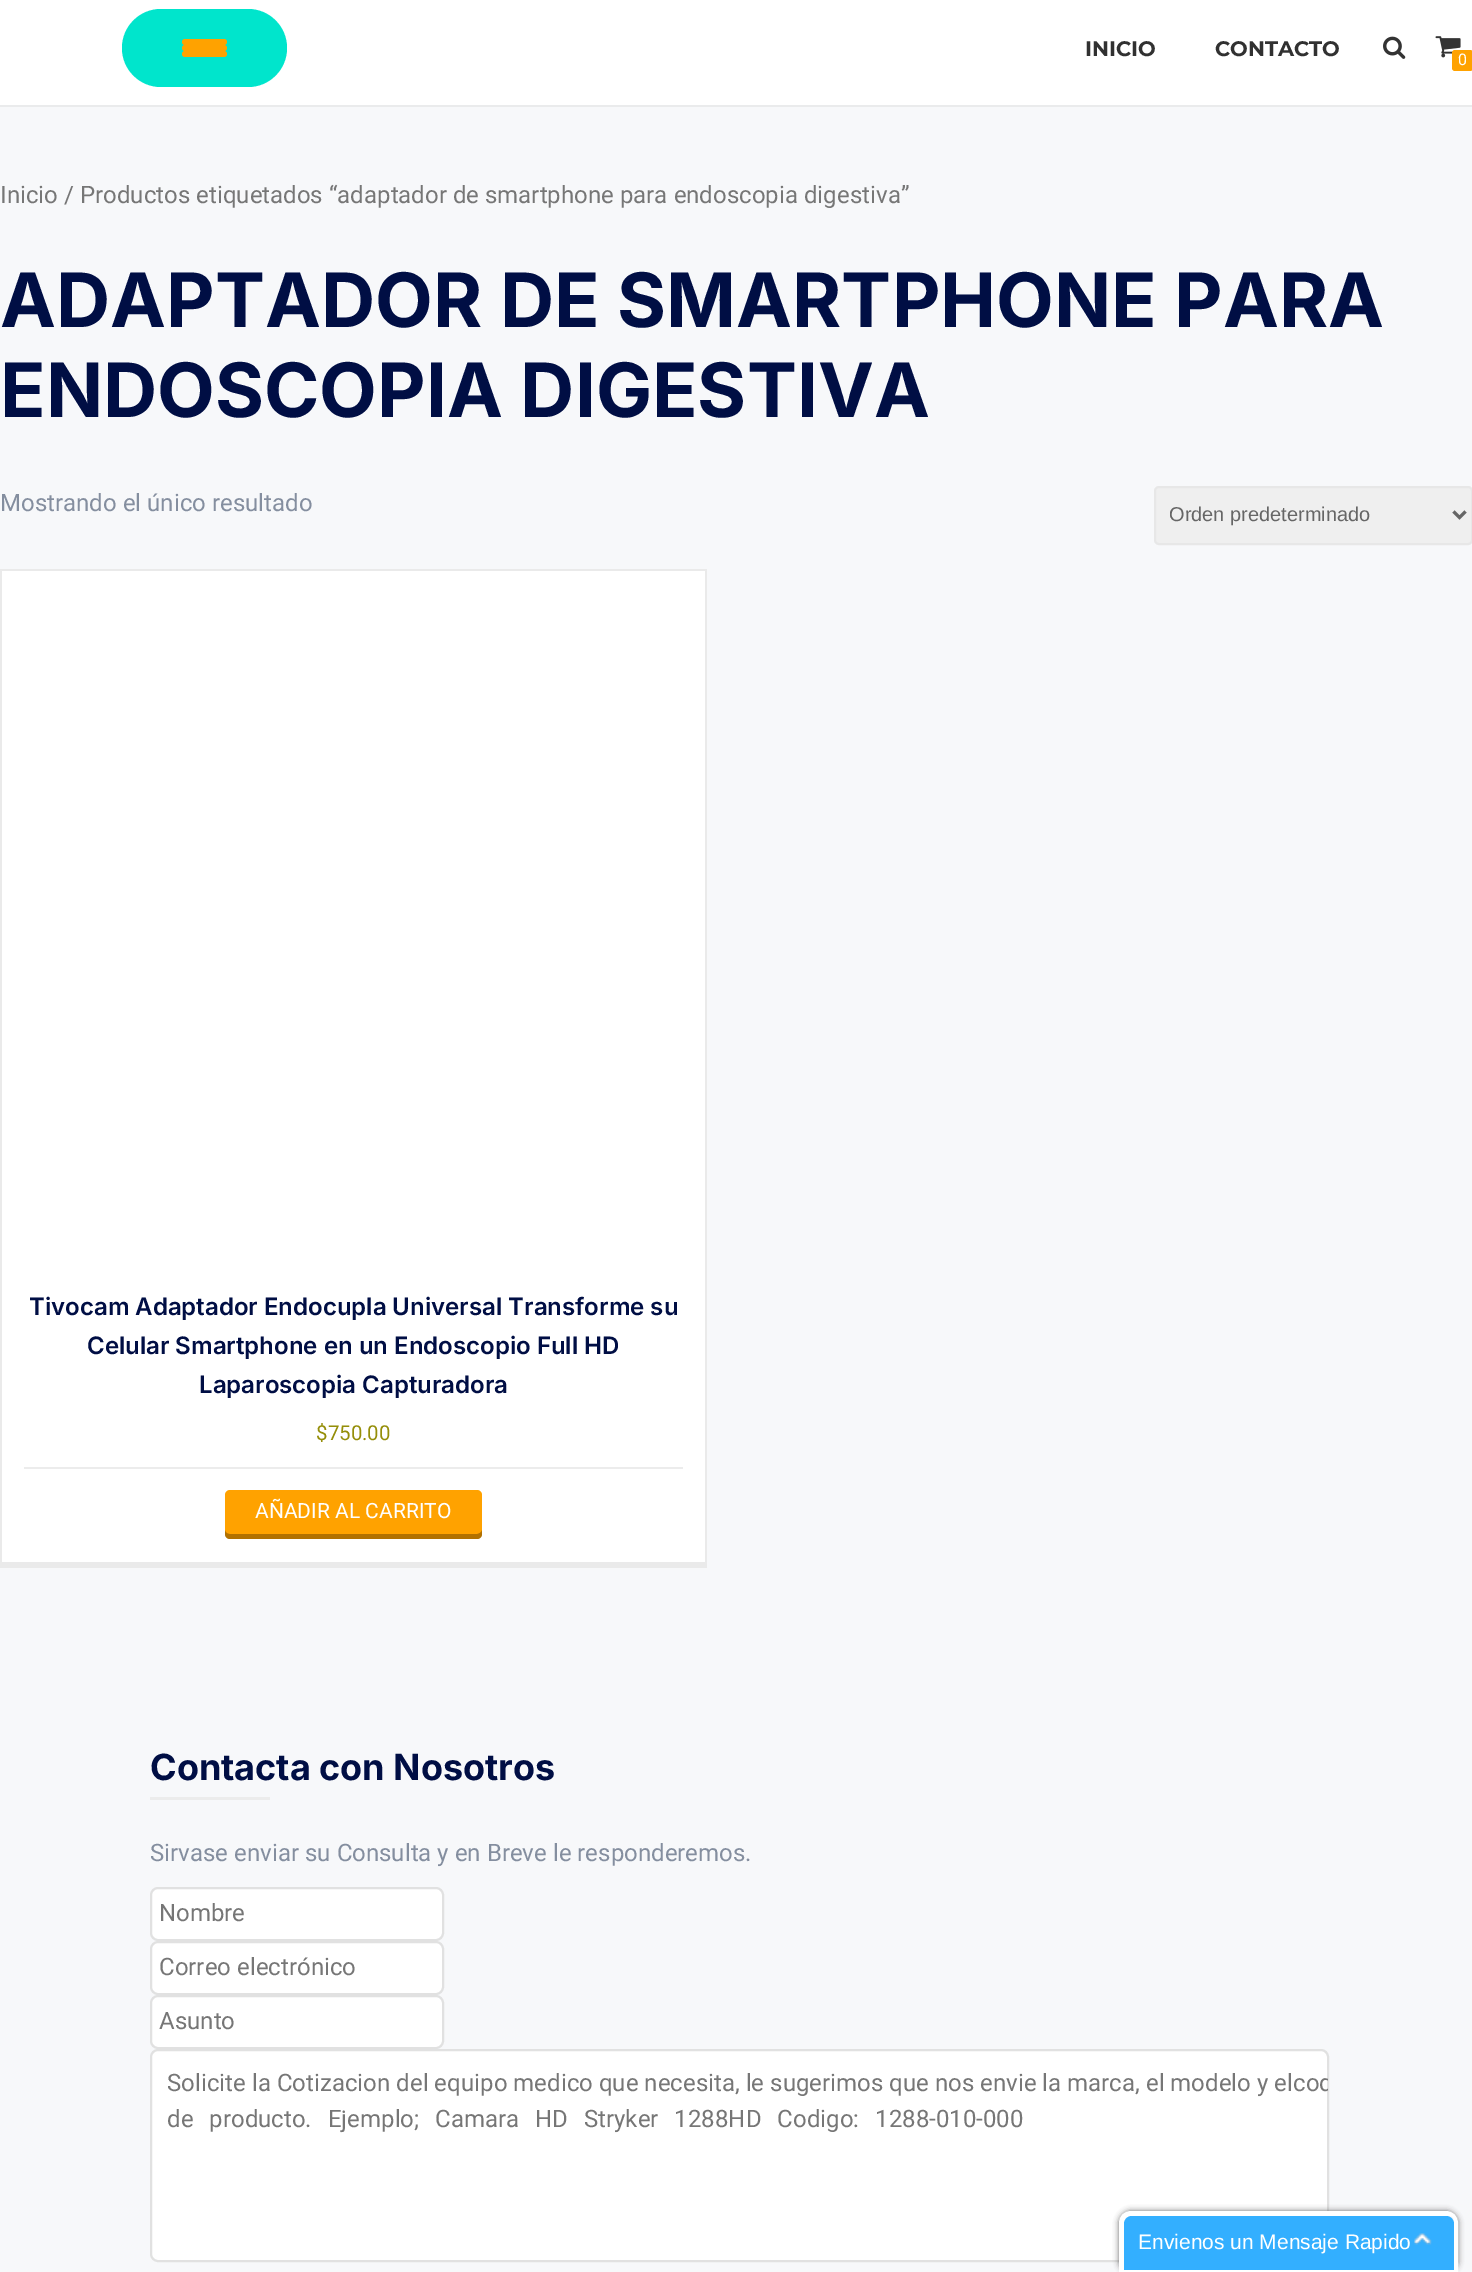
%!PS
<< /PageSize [1472 2272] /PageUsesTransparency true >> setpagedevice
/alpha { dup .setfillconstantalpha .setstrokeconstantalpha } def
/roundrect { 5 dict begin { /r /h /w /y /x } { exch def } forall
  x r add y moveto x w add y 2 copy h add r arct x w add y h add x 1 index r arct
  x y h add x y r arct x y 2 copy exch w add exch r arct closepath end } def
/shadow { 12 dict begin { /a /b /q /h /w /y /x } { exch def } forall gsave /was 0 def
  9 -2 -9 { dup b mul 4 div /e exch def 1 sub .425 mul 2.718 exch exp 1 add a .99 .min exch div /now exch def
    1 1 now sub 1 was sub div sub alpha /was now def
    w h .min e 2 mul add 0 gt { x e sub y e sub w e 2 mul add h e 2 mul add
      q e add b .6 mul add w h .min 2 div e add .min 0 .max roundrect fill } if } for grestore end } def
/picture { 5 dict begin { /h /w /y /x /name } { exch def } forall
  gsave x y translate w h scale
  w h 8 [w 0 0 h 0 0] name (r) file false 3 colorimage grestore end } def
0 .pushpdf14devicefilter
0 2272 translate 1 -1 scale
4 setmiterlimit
1 setgray
0 0 1472 2272 rectfill
0 0.898 0.8 setrgbcolor
122 9 165 78 39 roundrect fill
1 0.635 0 setrgbcolor
182 39 45 6 3 roundrect fill
182 45 45 6 3 roundrect fill
182 51 45 6 3 roundrect fill
/Montserrat-Bold [21 0 0 -21 0 0] selectfont
0.192 setgray
1085 56 moveto (INICIO) show
1215 56 moveto (CONTACTO) show
(img1.rgb) 1383 36 23 23 picture
(img2.rgb) 1435 36 26 22 picture
1 0.635 0 setrgbcolor
1452 50 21 21 3 roundrect fill
/Heebo-Regular [16 0 0 -16 0 0] selectfont
1 setgray
1458 65 moveto (0) show
0.969 0.973 0.98 setrgbcolor
0 107 1472 2165 rectfill
/Heebo-Regular [24 0 0 -24 0 0] selectfont
0.463 setgray
0 203 moveto (Inicio / Productos etiquetados “adaptador de smartphone para endoscopia digestiva”) show
/Inter-Bold [75 0 0 -75 0 0] selectfont
0 0.055 0.267 setrgbcolor
0 327 moveto (ADAPTADOR DE SMARTPHONE PARA) show
0 417 moveto (ENDOSCOPIA DIGESTIVA) show
/Heebo-Regular [24 0 0 -24 0 0] selectfont
0.518 0.557 0.624 setrgbcolor
0 511 moveto (Mostrando el único resultado) show
0.937 setgray
1155 487 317 57 4 roundrect gsave fill grestore
0.906 setgray
2 setlinewidth
stroke
0.4 setgray
3 setlinewidth
newpath 1453.5 511.5 moveto 1459.5 517.5 lineto 1465.5 511.5 lineto stroke
/LiberationSans-Regular [20 0 0 -20 0 0] selectfont
1169 521 moveto (Orden predeterminado) show
1 setgray
2 571 703 991 rectfill
0.918 setgray
0 569 707 2 rectfill
705 569 2 999 rectfill
0 1562 707 6 rectfill
0 569 2 999 rectfill
0.925 setgray
24 1467 659 2 rectfill
/Inter-SemiBold [24 0 0 -24 0 0] selectfont
0 0.055 0.267 setrgbcolor
29 1315 moveto (Tivocam Adaptador Endocupla Universal Transforme su) show
87 1354 moveto (Celular Smartphone en un Endoscopio Full HD) show
199 1393 moveto (Laparoscopia Capturadora) show
/Heebo-Regular [20.5 0 0 -20.5 0 0] selectfont
0.584 0.557 0.035 setrgbcolor
316 1440 moveto ($750.00) show
1 0.635 0 setrgbcolor
225 1490 257 49 5 roundrect fill
0.3 alpha
0 setgray
newpath 225 1530 moveto 225 1534 lineto 225 1537 227 1539 230 1539 curveto 477 1539 lineto 480 1539 482 1537 482 1534 curveto 482 1530 lineto 482 1532 479 1534 477 1534 curveto 230 1534 lineto 227 1534 225 1532 225 1530 curveto closepath fill
/Heebo-Regular [21 0 0 -21 0 0] selectfont
1 alpha
1 setgray
255 1518 moveto (AÑADIR AL CARRITO) show
0.918 0.922 0.925 setrgbcolor
0 105 1472 2 rectfill
/Inter-Bold [36 0 0 -36 0 0] selectfont
0 0.055 0.267 setrgbcolor
150 1780 moveto (Contacta con Nosotros) show
0.925 setgray
150 1797 120 3 rectfill
/Heebo-Regular [24 0 0 -24 0 0] selectfont
0.518 0.557 0.624 setrgbcolor
150 1861 moveto (Sirvase enviar su Consulta y en Breve le responderemos.) show
1 setgray
151 1888 292 52 7 roundrect gsave fill grestore
0.882 setgray
2 setlinewidth
stroke
0.463 setgray
159 1921 moveto (Nombre) show
1 setgray
151 1942 292 52 7 roundrect gsave fill grestore
0.882 setgray
stroke
0.463 setgray
159 1975 moveto (Correo electrónico) show
1 setgray
151 1996 292 52 7 roundrect gsave fill grestore
0.882 setgray
stroke
0.463 setgray
159 2029 moveto (Asunto) show
1 setgray
151 2050 1177 211 7 roundrect gsave fill grestore
0.882 setgray
stroke
0.463 setgray
167 2091 moveto (Solicite la Cotizacion del equipo medico que necesita, le sugerimos que nos envie la marca, el modelo y el) show
gsave
152 2051 1176 210 6 roundrect clip newpath
1293 2091 moveto (cod) show
grestore
167 2127 moveto 10 0 32 (de producto. Ejemplo; Camara HD Stryker 1288HD Codigo: 1288-010-000) widthshow
gsave
newpath 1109 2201 moveto 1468 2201 lineto 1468 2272 lineto 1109 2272 lineto closepath 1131 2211 moveto 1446 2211 lineto 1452.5 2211 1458 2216.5 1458 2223 curveto 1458 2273 lineto 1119 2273 lineto 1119 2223 lineto 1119 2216.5 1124.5 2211 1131 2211 curveto closepath eoclip newpath
0.4 setgray
1119 2211 339 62 12 3 1 shadow
grestore
0.2 0.686 1 setrgbcolor
newpath 1132 2216 moveto 1446 2216 lineto 1450.5 2216 1454 2219.5 1454 2224 curveto 1454 2270 lineto 1124 2270 lineto 1124 2224 lineto 1124 2219.5 1127.5 2216 1132 2216 curveto closepath fill
(img3.rgb) 1414 2233 18 12 picture
1 setgray
3 setlinewidth
newpath 1131 2212.5 moveto 1446 2212.5 lineto 1452 2212.5 1456.5 2217 1456.5 2223 curveto 1456.5 2271.5 lineto 1120.5 2271.5 lineto 1120.5 2223 lineto 1120.5 2217 1125 2212.5 1131 2212.5 curveto closepath stroke
1327 2214 125 2 rectfill
1454 2217 1 55 rectfill
1122 2260 2 12 rectfill
/LiberationSans-Regular [21 0 0 -21 0 0] selectfont
1138 2249 moveto (Envienos un Mensaje Rapido) show
.poppdf14devicefilter showpage
